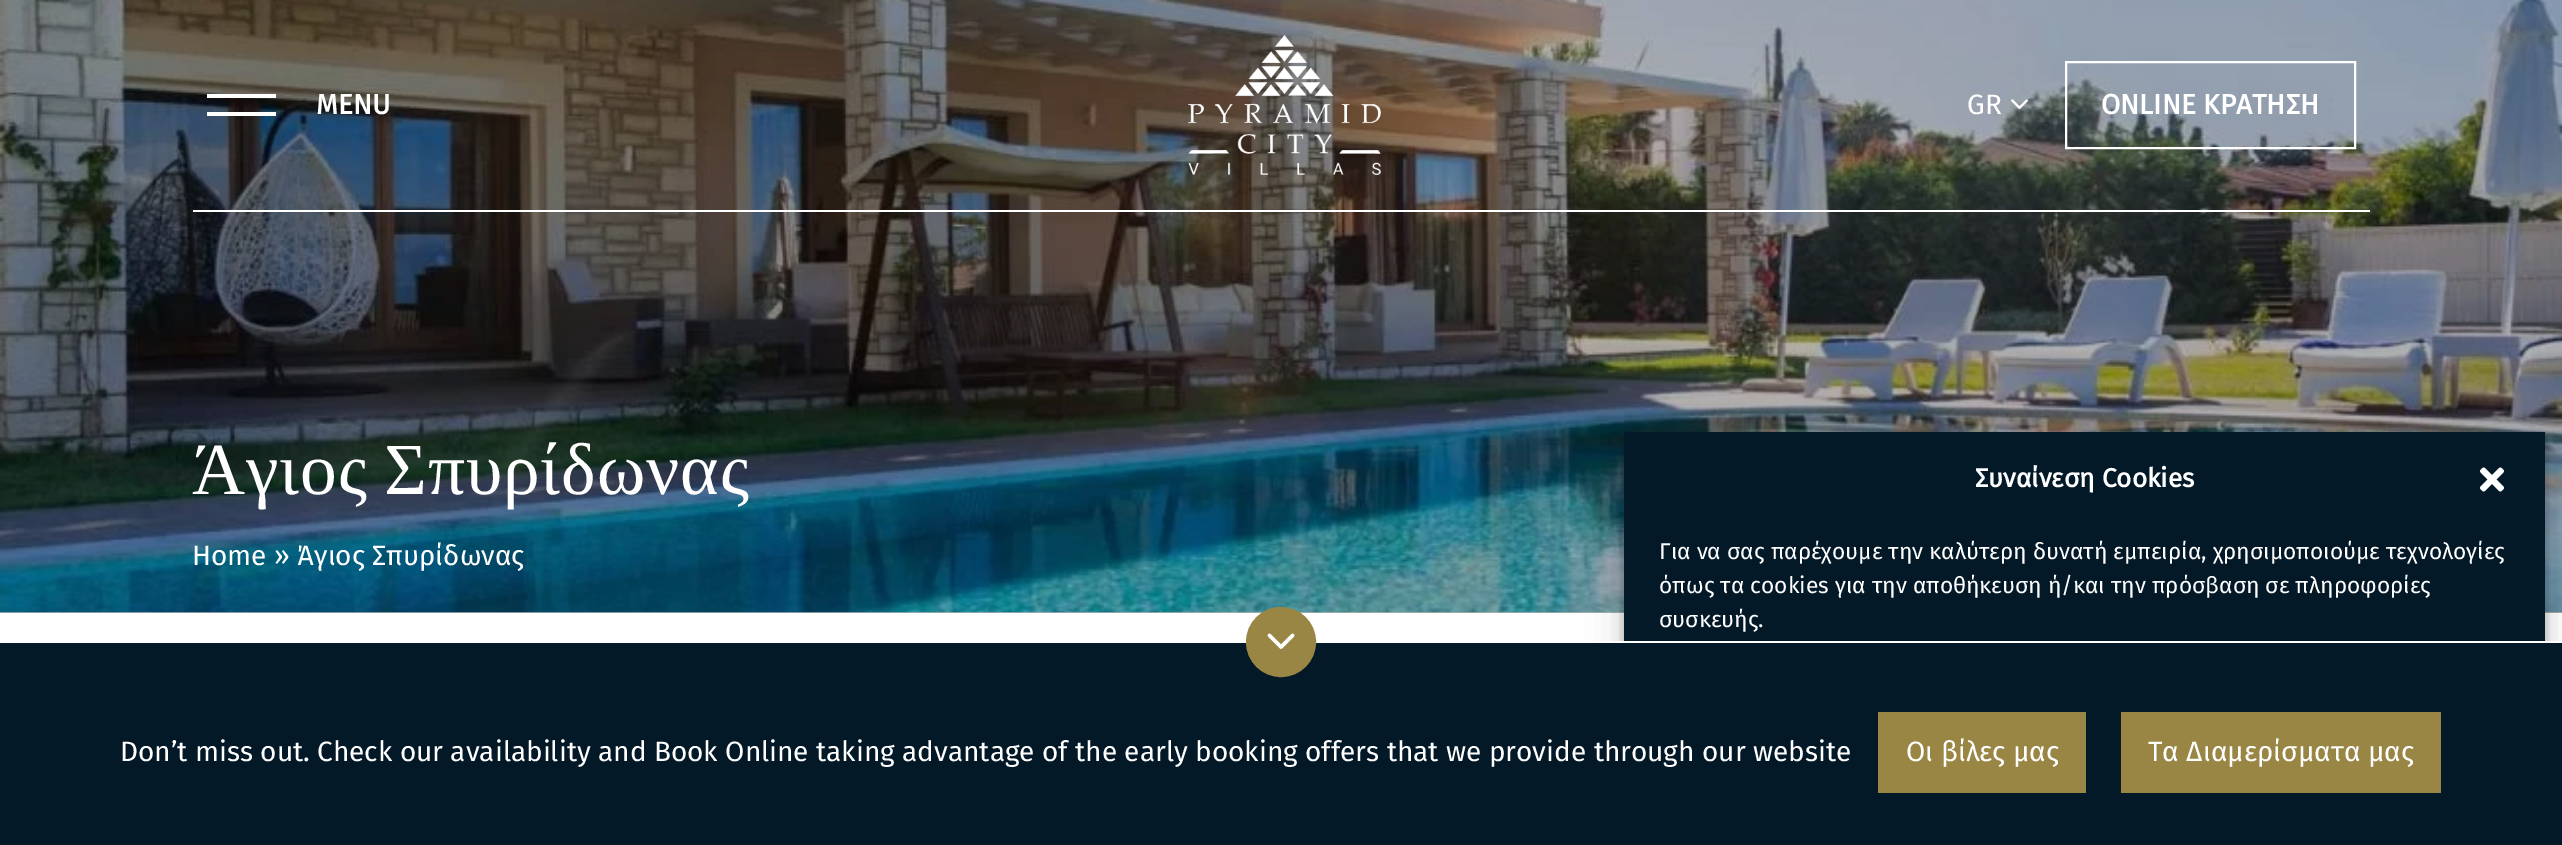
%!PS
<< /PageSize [2562 845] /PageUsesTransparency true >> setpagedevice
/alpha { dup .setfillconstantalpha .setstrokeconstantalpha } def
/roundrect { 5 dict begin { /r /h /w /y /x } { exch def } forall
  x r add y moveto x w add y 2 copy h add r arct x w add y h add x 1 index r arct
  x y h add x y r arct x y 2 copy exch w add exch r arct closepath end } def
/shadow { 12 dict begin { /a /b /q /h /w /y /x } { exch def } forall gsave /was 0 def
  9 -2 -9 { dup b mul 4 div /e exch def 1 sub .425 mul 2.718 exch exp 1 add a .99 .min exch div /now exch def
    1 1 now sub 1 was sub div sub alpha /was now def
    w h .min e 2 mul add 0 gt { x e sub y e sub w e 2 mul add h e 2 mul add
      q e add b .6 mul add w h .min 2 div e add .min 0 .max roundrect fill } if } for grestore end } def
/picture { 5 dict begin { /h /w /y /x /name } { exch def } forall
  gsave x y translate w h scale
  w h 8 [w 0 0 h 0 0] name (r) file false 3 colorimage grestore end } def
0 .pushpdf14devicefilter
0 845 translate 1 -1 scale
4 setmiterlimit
1 setgray
0 0 2562 845 rectfill
0.702 setgray
0 612 2562 1 rectfill
(img3.rgb) 0 0 2562 613 picture
1 setgray
193 210 2177 2 rectfill
newpath 276 98 moveto 207 98 lineto 207 94 lineto 276 94 lineto closepath 276 112 moveto 207 112 lineto 207 116 lineto 276 116 lineto closepath fill
/FiraSans-Bold [28 0 0 -28 0 0] selectfont
316 114 moveto (MENU) show
(img1.rgb) 1188 35 193 140 picture
/FiraSans-Regular [28 0 0 -28 0 0] selectfont
1967 114 moveto (GR) show
(img2.rgb) 2011 99 17 10 picture
2 setlinewidth
2066 62 289 86 rectstroke
/FiraSans-Bold [28 0 0 -28 0 0] selectfont
2101 114 moveto (ONLINE ΚΡΑΤΗΣΗ) show
/LiberationSerif-Regular [73.5 0 0 -73.5 0 0] selectfont
192 494 moveto -3 0 32 0.9 0 (Άγιος Σπυρίδωνας) awidthshow
/FiraSans-Regular [28 0 0 -28 0 0] selectfont
192 565 moveto (Home » Άγιος Σπυρίδωνας) show
0 setgray
1624 443 921 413 0 5 0.23 shadow
1624 450 921 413 0 17.5 0.19 shadow
0.012 0.098 0.153 setrgbcolor
1624 432 921 209 rectfill
/FiraSans-Bold [26.25 0 0 -26.25 0 0] selectfont
1 setgray
1975 487 moveto (Συναίνεση Cookies) show
(img4.rgb) 2480 467 24 25 picture
/FiraSans-Regular [22.75 0 0 -22.75 0 0] selectfont
1659 559 moveto (Για να σας παρέχουμε την καλύτερη δυνατή εμπειρία, χρησιμοποιούμε τεχνολογίες) show
1659 593 moveto (όπως τα cookies για την αποθήκευση ή/και την πρόσβαση σε πληροφορίες) show
1659 627 moveto (συσκευής.) show
0.012 0.098 0.153 setrgbcolor
0 643 2562 202 rectfill
1 setgray
1596 641 966 2 rectfill
0.604 0.525 0.267 setrgbcolor
newpath 1281 642 34 0 360 arc closepath gsave fill grestore
stroke
(img5.rgb) 1267 633 28 16 picture
/FiraSans-Regular [28 0 0 -28 0 0] selectfont
1 setgray
120 761 moveto (Don’t miss out. Check our availability and Book Online taking advantage of the early booking offers that we provide through our website) show
0.604 0.525 0.267 setrgbcolor
1878 712 208 81 rectfill
1 setgray
1906 761 moveto (Οι βίλες μας) show
0.604 0.525 0.267 setrgbcolor
2121 712 320 81 rectfill
1 setgray
2148 761 moveto (Τα Διαμερίσματα μας) show
.poppdf14devicefilter showpage
